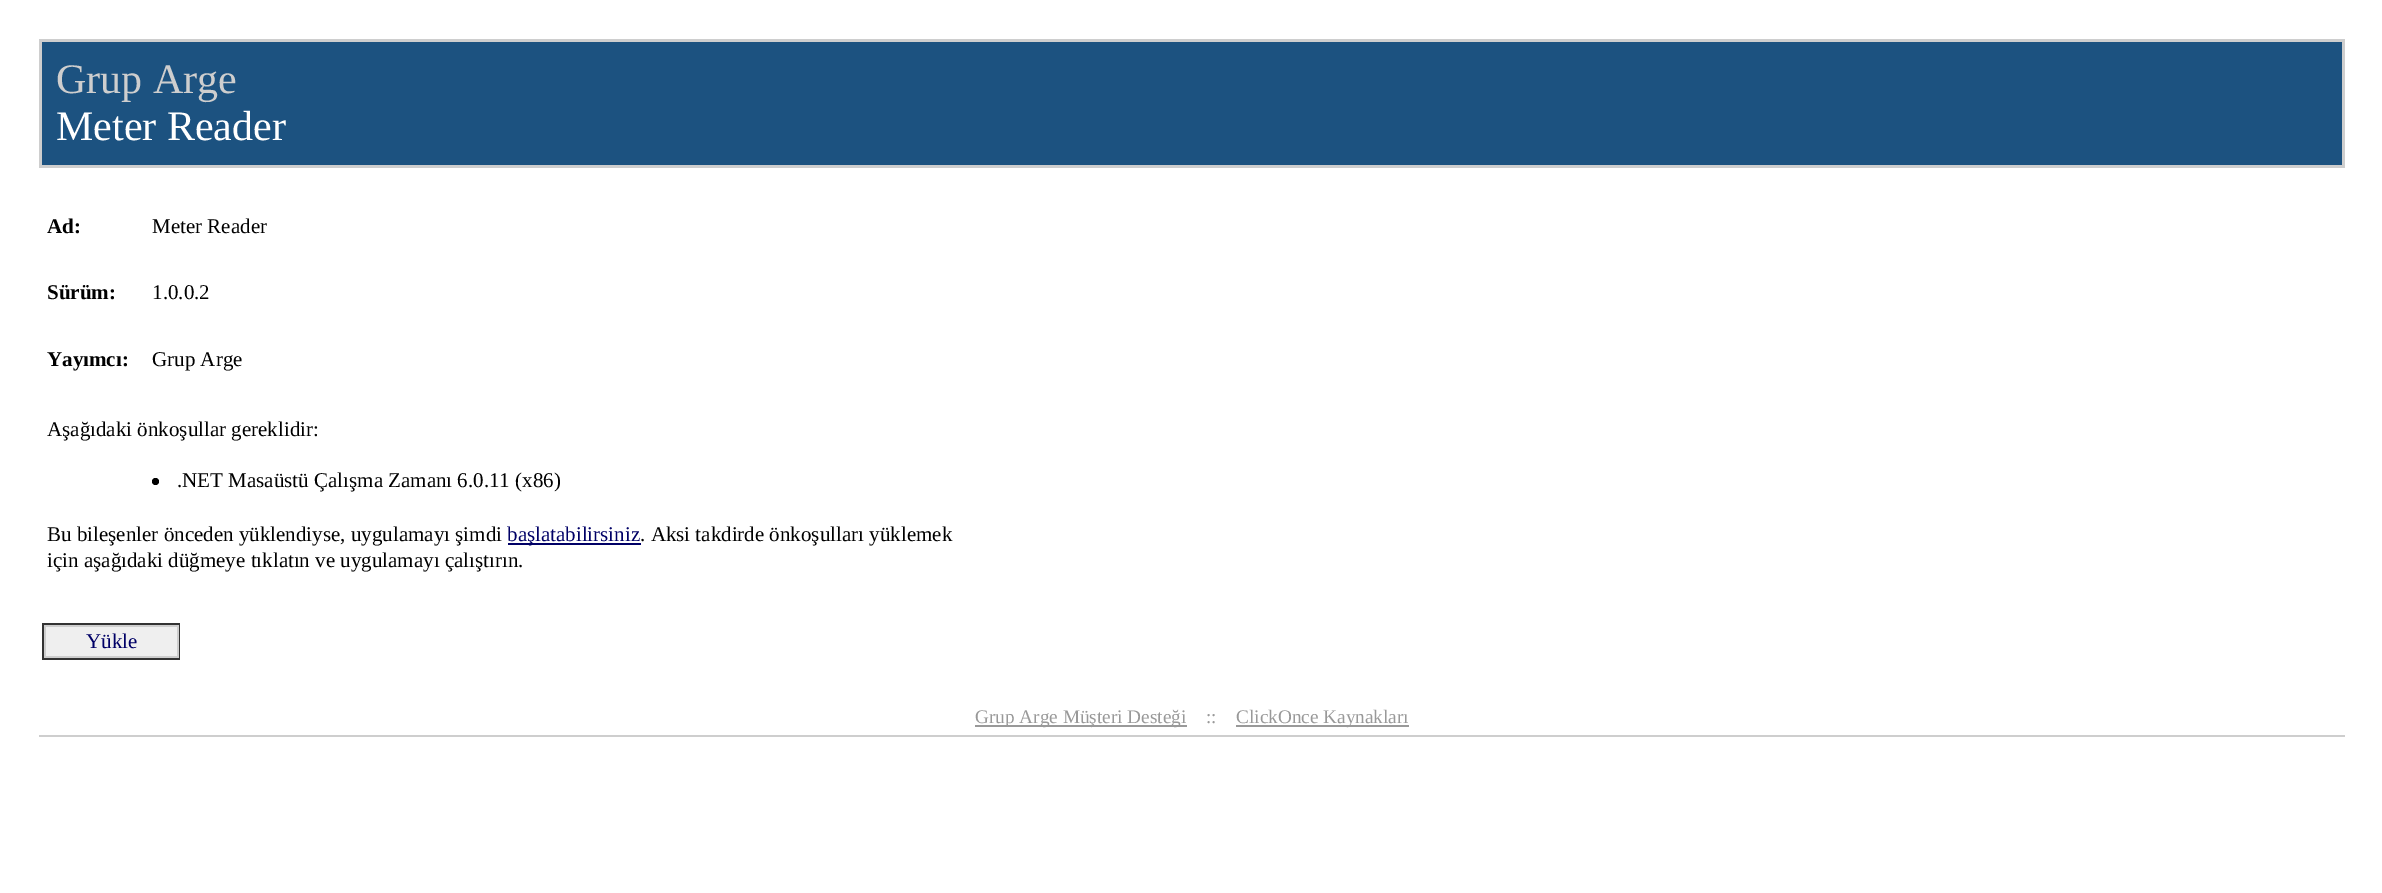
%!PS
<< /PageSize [2382 893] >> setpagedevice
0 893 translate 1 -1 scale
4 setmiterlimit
1 setgray
0 0 2382 893 rectfill
0.808 setgray
39 39 2306 129 rectfill
0.11 0.322 0.502 setrgbcolor
42 42 2300 123 rectfill
/LiberationSerif-Regular [42 0 0 -42 0 0] selectfont
0.808 setgray
56 93 moveto (Grup Arge) show
1 setgray
56 140 moveto (Meter Reader) show
/LiberationSerif-Bold [21 0 0 -21 0 0] selectfont
0 setgray
47 233 moveto (Ad:) show
/LiberationSerif-Regular [21 0 0 -21 0 0] selectfont
152 233 moveto (Meter Reader) show
/LiberationSerif-Bold [21 0 0 -21 0 0] selectfont
47 299 moveto (Sürüm:) show
/LiberationSerif-Regular [21 0 0 -21 0 0] selectfont
152 299 moveto (1.0.0.2) show
/LiberationSerif-Bold [21 0 0 -21 0 0] selectfont
47 366 moveto (Yayımcı:) show
/LiberationSerif-Regular [21 0 0 -21 0 0] selectfont
152 366 moveto (Grup Arge) show
47 436 moveto (Aşağıdaki önkoşullar gereklidir:) show
newpath 155.5 481.5 3.5 0 360 arc closepath fill
177 487 moveto (.NET Masaüstü Çalışma Zamanı 6.0.11 \(x86\)) show
47 541 moveto (Bu bileşenler önceden yüklendiyse, uygulamayı şimdi) show
0 0 0.4 setrgbcolor
508 543 133 2 rectfill
507 541 moveto (başlatabilirsiniz) show
0 setgray
640 541 moveto (. Aksi takdirde önkoşulları yüklemek) show
47 567 moveto (için aşağıdaki düğmeye tıklatın ve uygulamayı çalıştırın.) show
0.2 setgray
42 623 138 37 rectfill
0.808 setgray
44 625 135 33 rectfill
0.937 setgray
46 627 131 29 rectfill
0 0 0.4 setrgbcolor
86 648 moveto (Yükle) show
0.6 setgray
975 725 212 2 rectfill
/LiberationSerif-Regular [19.25 0 0 -19.25 0 0] selectfont
975 723 moveto (Grup Arge Müşteri Desteği) show
1206 723 moveto (::) show
1236 725 173 2 rectfill
1236 723 moveto (ClickOnce Kaynakları) show
0.808 setgray
39 735 2306 2 rectfill
showpage
